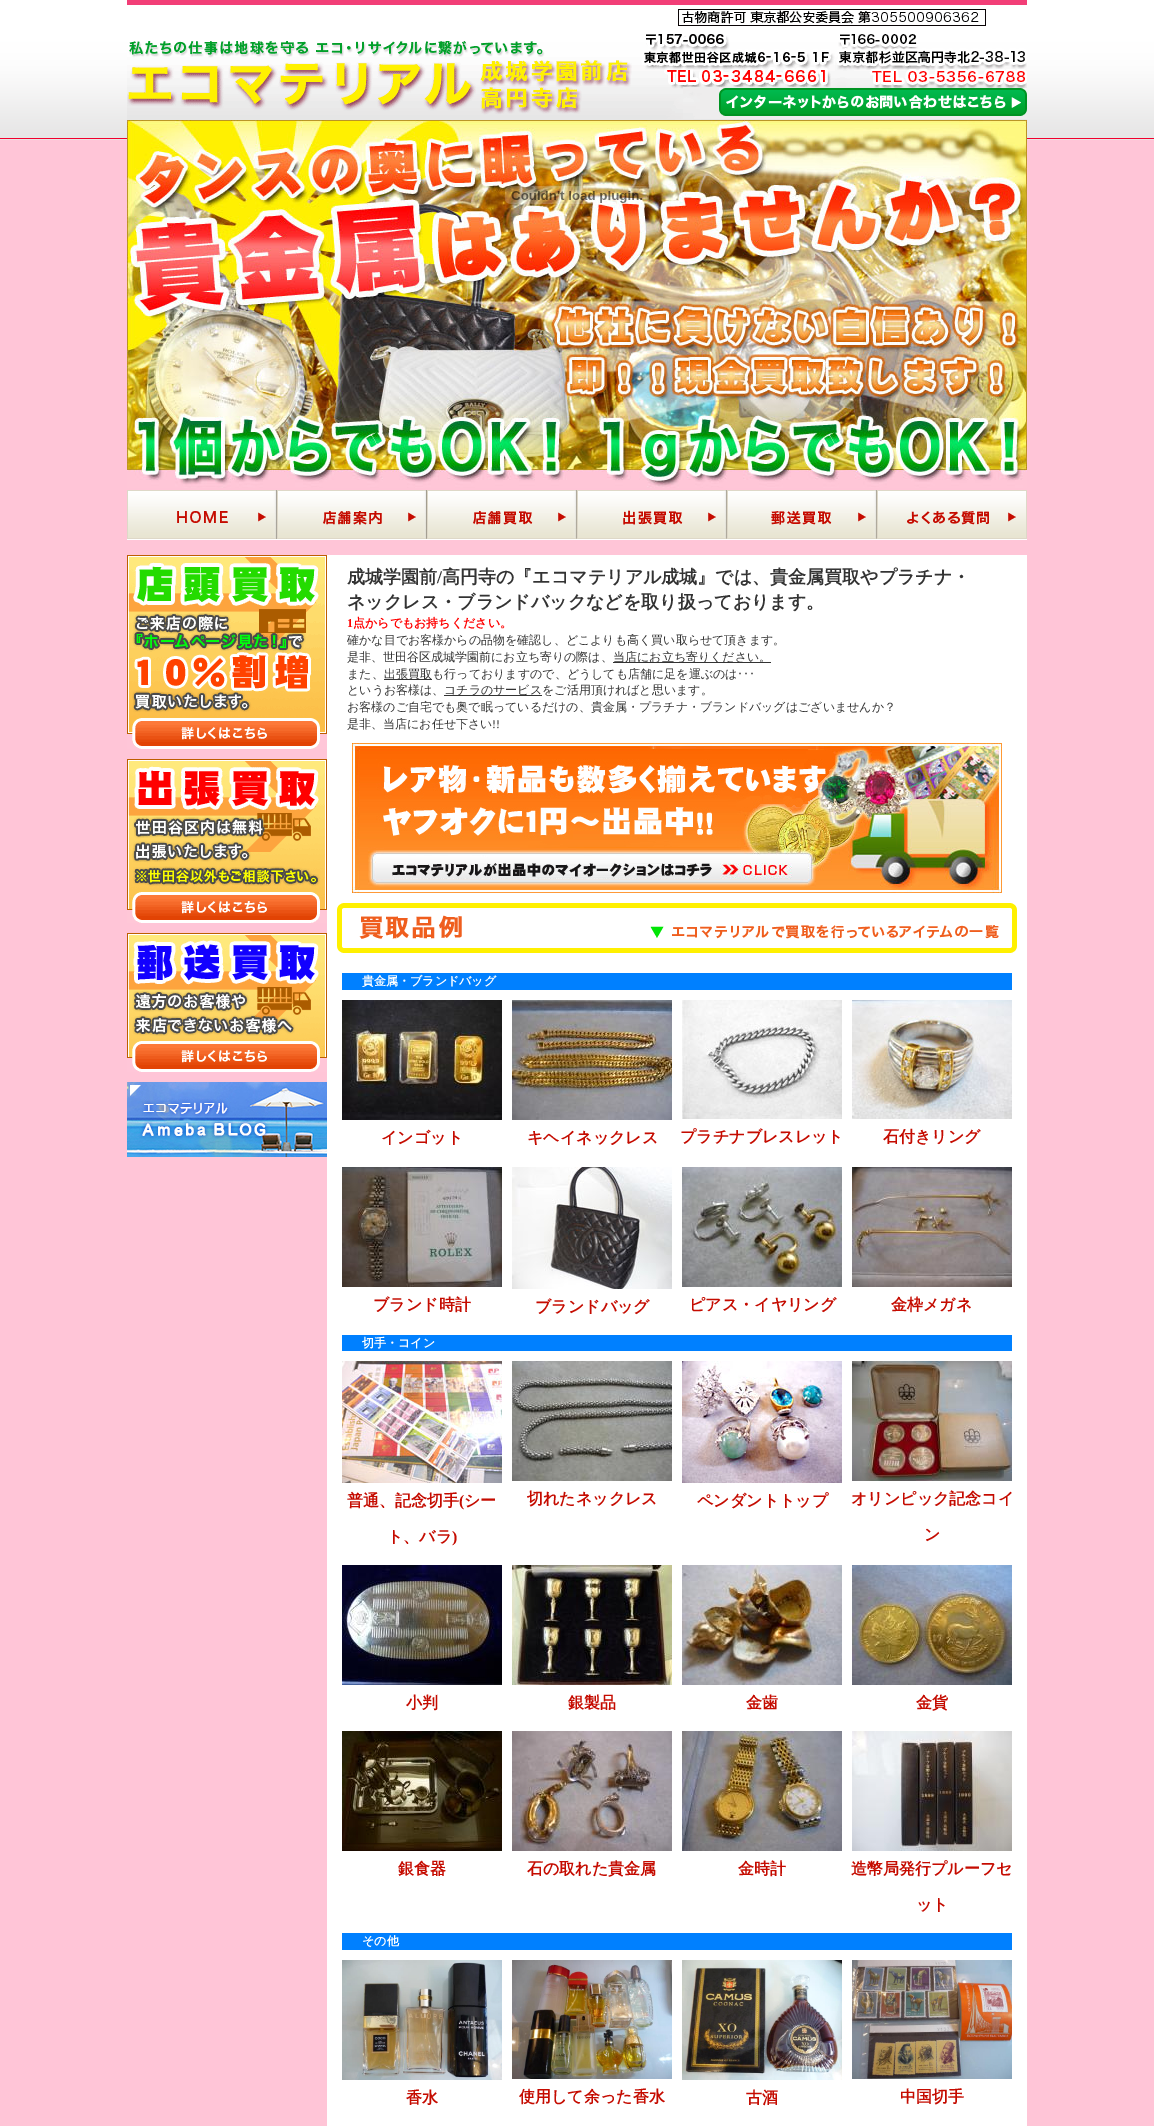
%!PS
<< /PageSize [1154 2126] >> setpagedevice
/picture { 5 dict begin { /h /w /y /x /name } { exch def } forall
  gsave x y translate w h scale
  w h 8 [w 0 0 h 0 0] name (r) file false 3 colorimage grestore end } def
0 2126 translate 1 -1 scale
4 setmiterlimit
1 0.773 0.843 setrgbcolor
0 0 1154 2126 rectfill
(img1.rgb) 0 0 1154 140 picture
(img2.rgb) 127 0 900 120 picture
(img3.rgb) 719 88 308 28 picture
(img4.rgb) 127 120 900 368 picture
(img5.rgb) 505 186 144 18 picture
(img6.rgb) 127 490 150 50 picture
(img7.rgb) 277 490 150 50 picture
(img8.rgb) 427 490 150 50 picture
(img9.rgb) 577 490 150 50 picture
(img10.rgb) 727 490 150 50 picture
(img11.rgb) 877 490 150 50 picture
1 setgray
327 555 700 1571 rectfill
(img12.rgb) 127 555 200 194 picture
(img13.rgb) 127 759 200 164 picture
(img14.rgb) 127 933 200 139 picture
(img15.rgb) 127 1082 200 75 picture
/WenQuanYiZenHei-Bold [18 0 0 -18 0 0] selectfont
0.2 setgray
347 583 moveto (成城学園前) show
/LiberationSerif-Bold [18 0 0 -18 0 0] selectfont
437 583 moveto (/) show
/WenQuanYiZenHei-Bold [18 0 0 -18 0 0] selectfont
442 583 moveto (高円寺の『エコマテリアル成城』では、貴金属買取やプラチナ・) show
347 608 moveto (ネックレス・ブランドバックなどを取り扱っております。) show
/LiberationSerif-Bold [12 0 0 -12 0 0] selectfont
1 0 0 setrgbcolor
347 627 moveto (1) show
/WenQuanYiZenHei-Bold [12 0 0 -12 0 0] selectfont
353 627 moveto (点からでもお持ちください。) show
/WenQuanYiZenHei-Medium [12 0 0 -12 0 0] selectfont
0.2 setgray
347 644 moveto (確かな目でお客様からの品物を確認し、どこよりも高く買い取らせて頂きます。) show
347 661 moveto (是非、世田谷区成城学園前にお立ち寄りの際は、) show
613 662 158 1 rectfill
613 661 moveto (当店にお立ち寄りください。) show
347 678 moveto (また、) show
384 679 48 1 rectfill
384 678 moveto (出張買取も行っておりますので、どうしても店舗に足を運ぶのは) show
/IPAPGothic-Regular [12 0 0 -12 0 0] selectfont
737 678 moveto (･･･) show
/WenQuanYiZenHei-Medium [12 0 0 -12 0 0] selectfont
347 694 moveto (というお客様は、) show
444 695 98 1 rectfill
444 694 moveto (コチラのサービスをご活用頂ければと思います。) show
347 711 moveto (お客様のご自宅でも奥で眠っているだけの、貴金属・プラチナ・ブランドバッグはございませんか？) show
347 728 moveto (是非、当店にお任せ下さい) show
/LiberationSerif-Regular [12 0 0 -12 0 0] selectfont
492 728 moveto (!!) show
(img16.rgb) 352 743 650 150 picture
(img17.rgb) 337 903 680 50 picture
0 0.502 1 setrgbcolor
342 973 670 17 rectfill
/WenQuanYiZenHei-Bold [12 0 0 -12 0 0] selectfont
1 setgray
362 985 moveto (貴金属・ブランドバッグ) show
(img18.rgb) 342 1000 160 120 picture
/WenQuanYiZenHei-Bold [16 0 0 -16 0 0] selectfont
0.773 0.043 0 setrgbcolor
381 1143 moveto (インゴット) show
(img19.rgb) 512 1000 160 120 picture
527 1143 moveto (キヘイネックレス) show
(img20.rgb) 682 1000 160 119 picture
680 1142 moveto (プラチナブレスレット) show
(img21.rgb) 852 1000 160 119 picture
883 1142 moveto (石付きリング) show
(img22.rgb) 342 1167 160 120 picture
373 1310 moveto (ブランド時計) show
(img23.rgb) 512 1167 160 122 picture
535 1312 moveto (ブランドバッグ) show
(img24.rgb) 682 1167 160 120 picture
689 1310 moveto (ピアス・イヤリング) show
(img25.rgb) 852 1167 160 120 picture
891 1310 moveto (金枠メガネ) show
0 0.502 1 setrgbcolor
342 1335 670 16 rectfill
/WenQuanYiZenHei-Bold [12 0 0 -12 0 0] selectfont
1 setgray
362 1347 moveto (切手・コイン) show
(img26.rgb) 342 1361 160 122 picture
/WenQuanYiZenHei-Bold [16 0 0 -16 0 0] selectfont
0.773 0.043 0 setrgbcolor
347 1506 moveto (普通、記念切手) show
/LiberationSerif-Bold [16 0 0 -16 0 0] selectfont
459 1506 moveto (\() show
/WenQuanYiZenHei-Bold [16 0 0 -16 0 0] selectfont
464 1506 moveto (シー) show
387 1542 moveto (ト、バラ) show
/LiberationSerif-Bold [16 0 0 -16 0 0] selectfont
452 1542 moveto (\)) show
(img27.rgb) 512 1361 160 120 picture
/WenQuanYiZenHei-Bold [16 0 0 -16 0 0] selectfont
527 1504 moveto (切れたネックレス) show
(img28.rgb) 682 1361 160 122 picture
697 1506 moveto (ペンダントトップ) show
(img29.rgb) 852 1361 160 120 picture
851 1504 moveto (オリンピック記念コイ) show
924 1540 moveto (ン) show
(img30.rgb) 342 1565 160 120 picture
406 1708 moveto (小判) show
(img31.rgb) 512 1565 160 120 picture
568 1708 moveto (銀製品) show
(img32.rgb) 682 1565 160 120 picture
746 1708 moveto (金歯) show
(img33.rgb) 852 1565 160 120 picture
916 1708 moveto (金貨) show
(img34.rgb) 342 1731 160 120 picture
398 1874 moveto (銀食器) show
(img35.rgb) 512 1731 160 120 picture
527 1874 moveto (石の取れた貴金属) show
(img36.rgb) 682 1731 160 120 picture
738 1874 moveto (金時計) show
(img37.rgb) 852 1731 160 120 picture
851 1874 moveto (造幣局発行プルーフセ) show
916 1910 moveto (ット) show
0 0.502 1 setrgbcolor
342 1933 670 17 rectfill
/WenQuanYiZenHei-Bold [12 0 0 -12 0 0] selectfont
1 setgray
362 1945 moveto (その他) show
(img38.rgb) 342 1960 160 120 picture
/WenQuanYiZenHei-Bold [16 0 0 -16 0 0] selectfont
0.773 0.043 0 setrgbcolor
406 2103 moveto (香水) show
(img39.rgb) 512 1960 160 119 picture
519 2102 moveto (使用して余った香水) show
(img40.rgb) 682 1960 160 120 picture
746 2103 moveto (古酒) show
(img41.rgb) 852 1960 160 119 picture
900 2102 moveto (中国切手) show
showpage
